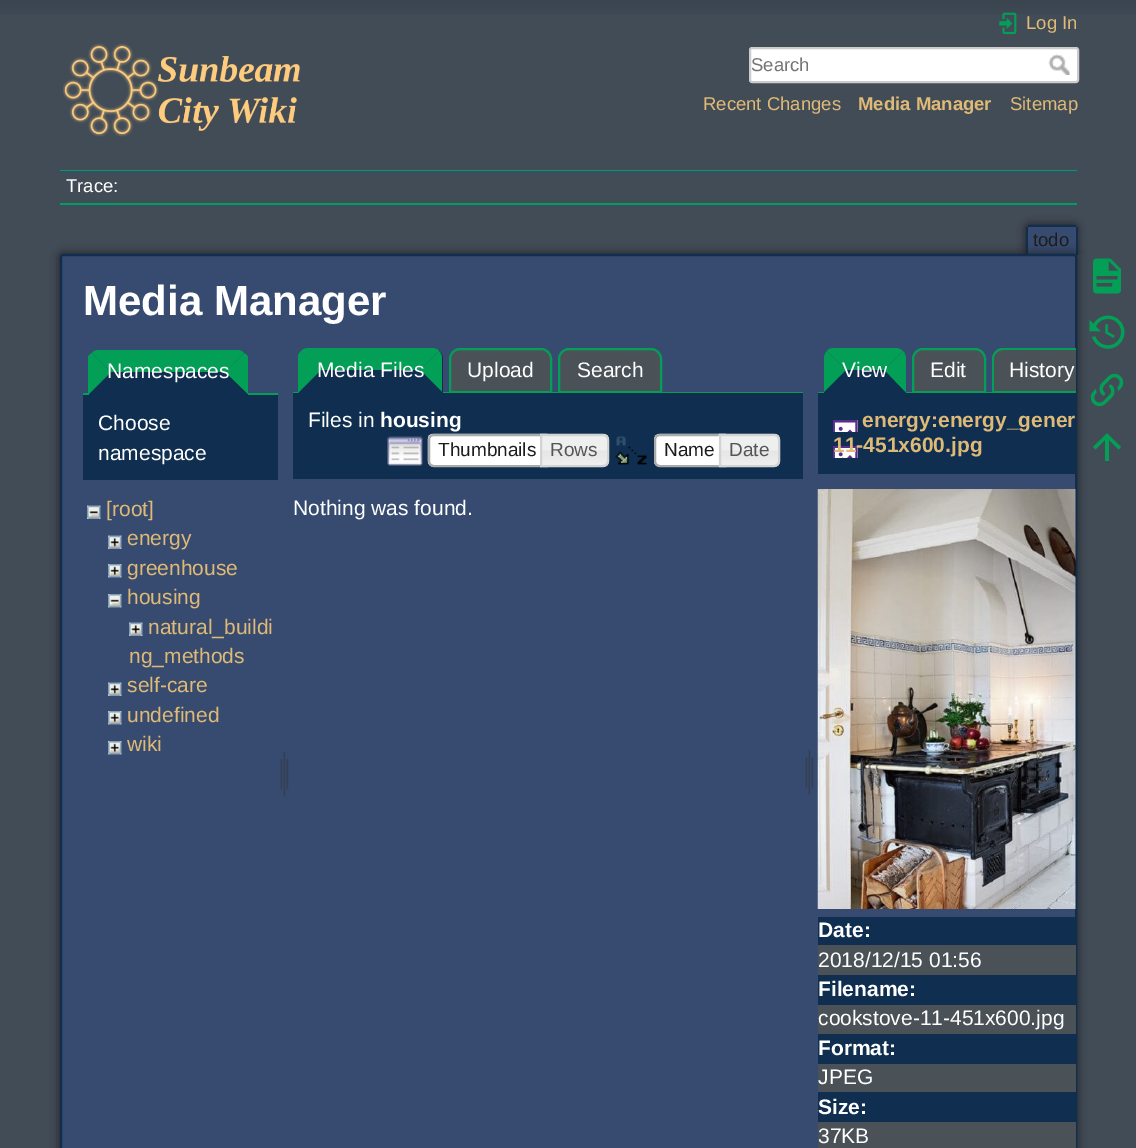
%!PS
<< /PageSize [1136 1148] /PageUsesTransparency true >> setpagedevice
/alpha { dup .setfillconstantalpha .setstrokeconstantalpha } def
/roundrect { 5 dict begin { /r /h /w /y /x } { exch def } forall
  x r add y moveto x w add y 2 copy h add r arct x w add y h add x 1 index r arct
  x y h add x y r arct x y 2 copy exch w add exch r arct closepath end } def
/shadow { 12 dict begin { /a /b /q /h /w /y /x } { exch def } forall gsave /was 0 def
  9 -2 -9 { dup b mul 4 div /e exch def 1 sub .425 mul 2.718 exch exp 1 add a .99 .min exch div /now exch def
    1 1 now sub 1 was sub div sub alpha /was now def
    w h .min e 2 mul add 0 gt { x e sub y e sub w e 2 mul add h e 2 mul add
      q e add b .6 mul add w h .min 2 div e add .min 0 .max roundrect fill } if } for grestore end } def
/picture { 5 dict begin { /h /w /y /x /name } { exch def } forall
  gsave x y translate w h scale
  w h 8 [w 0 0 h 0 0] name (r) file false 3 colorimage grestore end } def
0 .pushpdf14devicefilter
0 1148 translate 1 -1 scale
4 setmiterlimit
0.255 0.298 0.341 setrgbcolor
0 0 1136 1148 rectfill
(img1.rgb) 0 0 1136 14 picture
(img2.rgb) 63 43 237 94 picture
(img3.rgb) 999 12 18 23 picture
/LiberationSans-Regular [18.5 0 0 -18.5 0 0] selectfont
0.875 0.729 0.463 setrgbcolor
1026 29 moveto (Log In) show
1 setgray
750 48 328 34 2 roundrect gsave fill grestore
0.8 setgray
2 setlinewidth
stroke
0.459 setgray
751 71 moveto (Search) show
(img4.rgb) 1048 54 22 21 picture
0.875 0.729 0.463 setrgbcolor
703 110 moveto (Recent Changes) show
/LiberationSans-Bold [18.5 0 0 -18.5 0 0] selectfont
858 110 moveto (Media Manager) show
/LiberationSans-Regular [18.5 0 0 -18.5 0 0] selectfont
1010 110 moveto (Sitemap) show
0.012 0.624 0.337 setrgbcolor
60 170 1017 1 rectfill
0.216 0.294 0.439 setrgbcolor
60 205 1017 1 rectfill
60 171 1017 2 rectfill
0.012 0.624 0.337 setrgbcolor
60 203 1017 2 rectfill
1 setgray
66 192 moveto (Trace:) show
gsave
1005 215 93 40 rectclip
0.11 setgray
1026 225 51 30 3 4.5 1 shadow
grestore
0.216 0.294 0.439 setrgbcolor
newpath 1029.5 227 moveto 1074.5 227 lineto 1075.5 227 1076 227.5 1076 228.5 curveto 1076 255 lineto 1028 255 lineto 1028 228.5 lineto 1028 227.5 1028.5 227 1029.5 227 curveto closepath fill
0.063 0.184 0.314 setrgbcolor
1028 225 48 2 rectfill
1076 227 2 28 rectfill
1026 227 2 28 rectfill
0.11 setgray
1033 246 moveto (todo) show
60 254 1017 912 3 5 1 shadow
0.216 0.294 0.439 setrgbcolor
61 255 1015 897 2 roundrect gsave fill grestore
0.063 0.184 0.314 setrgbcolor
stroke
/LiberationSans-Bold [42 0 0 -42 0 0] selectfont
1 setgray
83 315 moveto (Media Manager) show
0.012 0.624 0.337 setrgbcolor
83 393 195 2 rectfill
0.063 0.184 0.314 setrgbcolor
newpath 100 350 moveto 237 350 lineto 243 350 248 355 248 361 curveto 248 395 lineto 89 395 lineto 89 361 lineto 89 355 94 350 100 350 curveto closepath fill
0.012 0.624 0.337 setrgbcolor
newpath 99 350 moveto 96 350 93 351 92 353 curveto 111 372 lineto 225 372 lineto 244 353 lineto 243 351 240 350 237 350 curveto closepath fill
newpath 248 394 moveto 225 372 lineto 244 353 lineto 246 354 247 355 248 357 curveto closepath fill
0.063 0.184 0.314 setrgbcolor
newpath 247 394 moveto 225 372 lineto 111 372 lineto 89 394 lineto closepath fill
0.012 0.624 0.337 setrgbcolor
newpath 88 357 moveto 89 355 90 354 92 353 curveto 111 372 lineto 89 394 lineto 88 394 lineto closepath fill
/LiberationSans-Regular [21 0 0 -21 0 0] selectfont
1 setgray
107 378 moveto (Namespaces) show
0.063 0.184 0.314 setrgbcolor
83 395 195 85 rectfill
1 setgray
98 430 moveto (Choose) show
98 460 moveto (namespace) show
(img5.rgb) 87 505 14 14 picture
0.875 0.729 0.463 setrgbcolor
106 516 moveto ([root]) show
(img6.rgb) 108 535 14 14 picture
127 545 moveto (energy) show
(img7.rgb) 108 564 14 14 picture
127 575 moveto (greenhouse) show
(img8.rgb) 108 594 14 14 picture
127 604 moveto (housing) show
(img6.rgb) 129 622 14 14 picture
148 634 moveto (natural_buildi) show
129 663 moveto (ng_methods) show
(img6.rgb) 108 682 14 14 picture
127 692 moveto (self-care) show
(img7.rgb) 108 711 14 14 picture
127 722 moveto (undefined) show
(img7.rgb) 108 741 14 14 picture
127 751 moveto (wiki) show
(img9.rgb) 280 751 9 46 picture
0.29 0.322 0.345 setrgbcolor
newpath 460 349 moveto 541 349 lineto 546.5 349 551 353.5 551 359 curveto 551 392 lineto 450 392 lineto 450 359 lineto 450 353.5 454.5 349 460 349 curveto closepath gsave fill grestore
0.012 0.624 0.337 setrgbcolor
stroke
0.29 0.322 0.345 setrgbcolor
newpath 569 349 moveto 651 349 lineto 656.5 349 661 353.5 661 359 curveto 661 392 lineto 559 392 lineto 559 359 lineto 559 353.5 563.5 349 569 349 curveto closepath gsave fill grestore
0.012 0.624 0.337 setrgbcolor
stroke
293 392 510 1 rectfill
0.063 0.184 0.314 setrgbcolor
newpath 310 348 moveto 432 348 lineto 438 348 443 353 443 359 curveto 443 393 lineto 299 393 lineto 299 359 lineto 299 353 304 348 310 348 curveto closepath fill
0.012 0.624 0.337 setrgbcolor
newpath 309 348 moveto 432 348 lineto 435 348 438 349 439 351 curveto 420 370 lineto 321 370 lineto 301 351 lineto 303 349 306 348 309 348 curveto closepath fill
newpath 439 351 moveto 420 370 lineto 442 392 lineto 442 358 lineto 442 356 441 353 439 351 curveto closepath fill
0.063 0.184 0.314 setrgbcolor
newpath 442 392 moveto 420 370 lineto 321 370 lineto 298 393 lineto 442 393 lineto closepath fill
0.012 0.624 0.337 setrgbcolor
newpath 298 393 moveto 321 370 lineto 301 351 lineto 298 355 lineto closepath fill
1 setgray
317 377 moveto (Media Files) show
467 377 moveto (Upload) show
577 377 moveto (Search) show
0.063 0.184 0.314 setrgbcolor
293 393 510 86 rectfill
1 setgray
308 427 moveto (Files in) show
/LiberationSans-Bold [21 0 0 -21 0 0] selectfont
380 427 moveto (housing) show
(img10.rgb) 387 436 36 30 picture
(img11.rgb) 427 433 121 34 picture
0.667 setgray
newpath 434 435 moveto 547 435 lineto 547 466 lineto 434 466 lineto 431 466 429 464 429 461 curveto 429 440 lineto 429 437 431 435 434 435 curveto closepath stroke
/LiberationSans-Regular [19 0 0 -19 0 0] selectfont
0.11 setgray
438 456 moveto (Thumbnails) show
(img12.rgb) 540 433 69 34 picture
0.827 setgray
newpath 541 435 moveto 603 435 lineto 606 435 608 437 608 440 curveto 608 461 lineto 608 464 606 466 603 466 curveto 541 466 lineto closepath stroke
0.333 setgray
550 456 moveto (Rows) show
(img13.rgb) 615 436 32 29 picture
(img14.rgb) 654 433 72 34 picture
0.667 setgray
newpath 660 435 moveto 725 435 lineto 725 466 lineto 660 466 lineto 657 466 655 464 655 461 curveto 655 440 lineto 655 437 657 435 660 435 curveto closepath stroke
0.11 setgray
664 456 moveto (Name) show
(img15.rgb) 718 433 62 34 picture
0.827 setgray
newpath 720 435 moveto 774 435 lineto 777 435 779 437 779 440 curveto 779 461 lineto 779 464 777 466 774 466 curveto 720 466 lineto closepath stroke
0.333 setgray
729 456 moveto (Date) show
/LiberationSans-Regular [21 0 0 -21 0 0] selectfont
1 setgray
293 515 moveto (Nothing was found.) show
(img16.rgb) 805 749 9 47 picture
0.29 0.322 0.345 setrgbcolor
newpath 923 349 moveto 975 349 lineto 980.5 349 985 353.5 985 359 curveto 985 392 lineto 913 392 lineto 913 359 lineto 913 353.5 917.5 349 923 349 curveto closepath gsave fill grestore
0.012 0.624 0.337 setrgbcolor
stroke
818 392 174 1 rectfill
0.063 0.184 0.314 setrgbcolor
newpath 835 348 moveto 895 348 lineto 901 348 906 353 906 359 curveto 906 393 lineto 824 393 lineto 824 359 lineto 824 353 829 348 835 348 curveto closepath fill
0.012 0.624 0.337 setrgbcolor
newpath 834 348 moveto 896 348 lineto 898 348 901 349 903 351 curveto 884 370 lineto 846 370 lineto 827 351 lineto 828 349 831 348 834 348 curveto closepath fill
newpath 903 351 moveto 884 370 lineto 906 393 lineto 906 358 lineto 906 356 905 353 903 351 curveto closepath fill
0.063 0.184 0.314 setrgbcolor
newpath 906 393 moveto 824 393 lineto 846 370 lineto 884 370 lineto closepath fill
0.012 0.624 0.337 setrgbcolor
newpath 827 351 moveto 825 353 824 356 824 358 curveto 824 392 lineto 846 370 lineto closepath fill
1 setgray
842 377 moveto (View) show
930 377 moveto (Edit) show
0.29 0.322 0.345 setrgbcolor
newpath 1003 348 moveto 1076 348 lineto 1076 393 lineto 992 393 lineto 992 359 lineto 992 353 997 348 1003 348 curveto closepath fill
0.012 0.624 0.337 setrgbcolor
newpath 1003 348 moveto 997 348 992 353 992 359 curveto 992 393 lineto 1076 393 lineto 1076 391 lineto 994 391 lineto 994 359 lineto 994 354 998 350 1003 350 curveto 1076 350 lineto 1076 348 lineto closepath fill
1 setgray
1009 377 moveto (History) show
0.063 0.184 0.314 setrgbcolor
818 393 257 81 rectfill
(img17.rgb) 833 420 25 38 picture
/LiberationSans-Bold [21 0 0 -21 0 0] selectfont
0.875 0.729 0.463 setrgbcolor
862 427 moveto (energy:energy_gener) show
833 452 moveto (11-451x600.jpg) show
(img18.rgb) 817 489 259 420 picture
0.063 0.184 0.314 setrgbcolor
818 917 257 28 rectfill
1 setgray
818 937 moveto (Date:) show
0.29 0.322 0.345 setrgbcolor
818 945 258 30 rectfill
/LiberationSans-Regular [21 0 0 -21 0 0] selectfont
1 setgray
818 967 moveto (2018/12/15 01:56) show
0.063 0.184 0.314 setrgbcolor
818 975 257 30 rectfill
/LiberationSans-Bold [21 0 0 -21 0 0] selectfont
1 setgray
818 996 moveto (Filename:) show
0.29 0.322 0.345 setrgbcolor
818 1005 258 29 rectfill
/LiberationSans-Regular [21 0 0 -21 0 0] selectfont
1 setgray
818 1025 moveto (cookstove-11-451x600.jpg) show
0.063 0.184 0.314 setrgbcolor
818 1034 257 30 rectfill
/LiberationSans-Bold [21 0 0 -21 0 0] selectfont
1 setgray
818 1055 moveto (Format:) show
0.29 0.322 0.345 setrgbcolor
818 1064 258 28 rectfill
/LiberationSans-Regular [21 0 0 -21 0 0] selectfont
1 setgray
818 1084 moveto (JPEG) show
0.063 0.184 0.314 setrgbcolor
818 1092 257 30 rectfill
/LiberationSans-Bold [21 0 0 -21 0 0] selectfont
1 setgray
818 1114 moveto (Size:) show
0.29 0.322 0.345 setrgbcolor
818 1122 258 26 rectfill
/LiberationSans-Regular [21 0 0 -21 0 0] selectfont
1 setgray
818 1143 moveto (37KB) show
(img19.rgb) 1093 258 28 36 picture
(img20.rgb) 1089 315 36 34 picture
(img21.rgb) 1090 373 34 34 picture
0.012 0.624 0.337 setrgbcolor
newpath 1109 461 moveto 1105 461 lineto 1105 440 lineto 1095.5 449.5 lineto 1093 447 lineto 1107 433.5 lineto 1121 447 lineto 1118.5 449.5 lineto 1109 440 lineto closepath fill
.poppdf14devicefilter showpage
